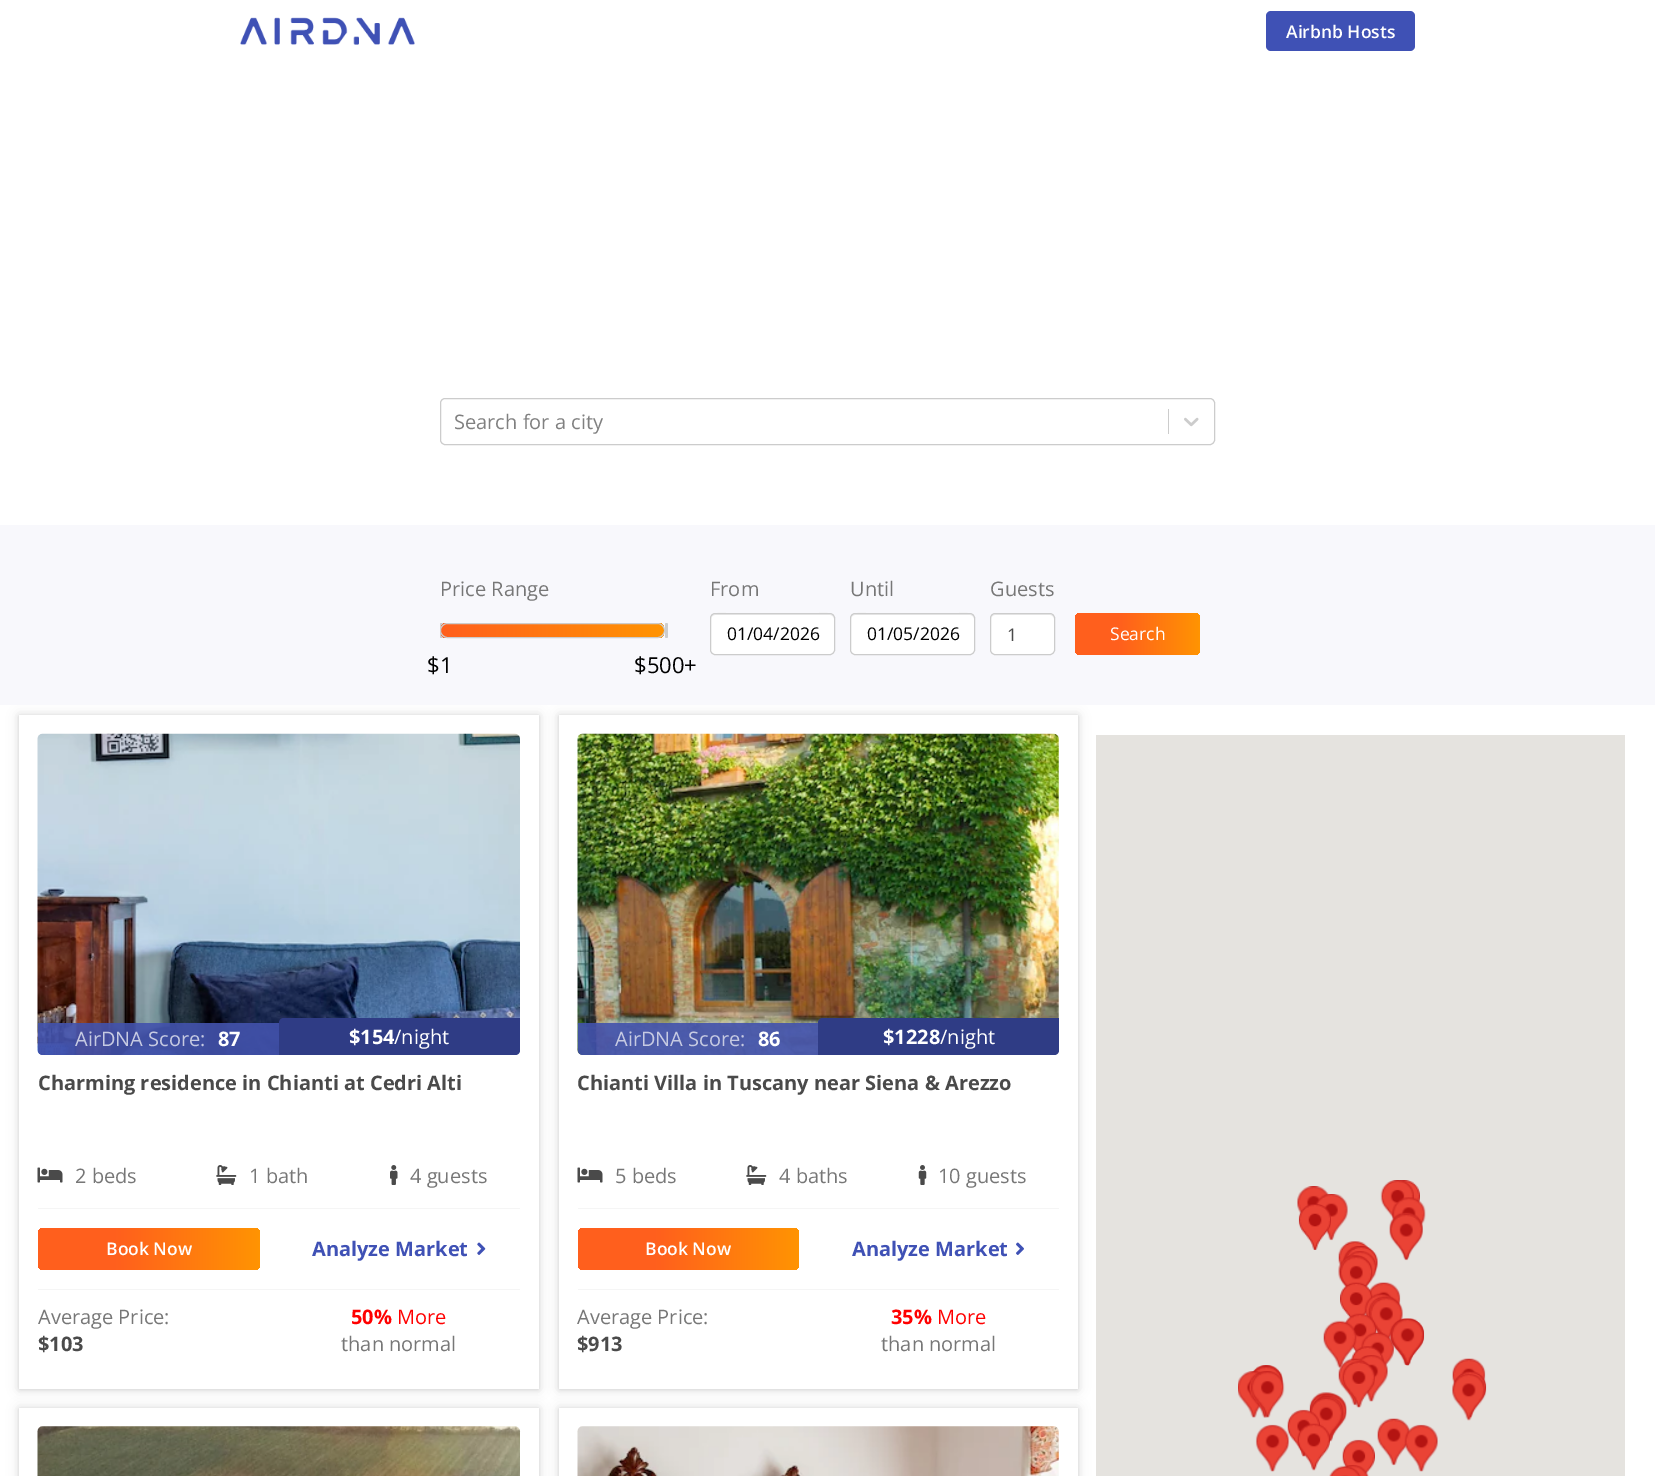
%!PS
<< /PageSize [1655 1476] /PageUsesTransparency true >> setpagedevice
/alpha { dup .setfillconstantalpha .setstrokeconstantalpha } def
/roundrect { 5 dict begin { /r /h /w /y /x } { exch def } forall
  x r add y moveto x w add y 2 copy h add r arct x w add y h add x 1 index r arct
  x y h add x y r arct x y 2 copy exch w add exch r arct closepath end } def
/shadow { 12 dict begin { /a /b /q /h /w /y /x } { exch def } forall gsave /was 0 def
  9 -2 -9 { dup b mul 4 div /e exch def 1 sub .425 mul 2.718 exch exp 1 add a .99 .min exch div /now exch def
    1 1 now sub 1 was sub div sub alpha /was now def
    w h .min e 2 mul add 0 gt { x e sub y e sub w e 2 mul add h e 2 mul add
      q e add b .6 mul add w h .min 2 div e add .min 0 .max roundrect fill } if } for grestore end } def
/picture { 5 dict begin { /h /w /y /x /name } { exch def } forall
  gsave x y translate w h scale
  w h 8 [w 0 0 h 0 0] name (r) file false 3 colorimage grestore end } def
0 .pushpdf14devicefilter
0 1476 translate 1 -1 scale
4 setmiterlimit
1 setgray
0 0 1655 1476 rectfill
(img1.rgb) 240 17 175 28 picture
0.247 0.318 0.71 setrgbcolor
1266 11 149 40 5 roundrect fill
/OpenSans-SemiBold [17.5 0 0 -17.5 0 0] selectfont
1 setgray
1286 38 moveto (Airbnb Hosts) show
0.8 setgray
440.5 398.5 774 46 4.5 roundrect stroke
/OpenSans-Regular [20 0 0 -20 0 0] selectfont
0.502 setgray
454 429 moveto (Search for a city) show
0.8 setgray
1168 409 1 25 rectfill
(img2.rgb) 1184 417 15 10 picture
gsave
newpath 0 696 moveto 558 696 lineto 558 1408 lineto 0 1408 lineto closepath 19 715 moveto 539 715 lineto 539 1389 lineto 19 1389 lineto closepath eoclip newpath
0 setgray
19 715 520 674 0 6 0.1 shadow
grestore
gsave
newpath 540 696 moveto 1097 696 lineto 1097 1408 lineto 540 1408 lineto closepath 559 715 moveto 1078 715 lineto 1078 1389 lineto 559 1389 lineto closepath eoclip newpath
0 setgray
559 715 519 674 0 6 0.1 shadow
grestore
0.973 0.973 0.988 setrgbcolor
0 525 1655 180 rectfill
0.467 setgray
440 596 moveto (Price Range) show
0.8 setgray
440 623 3 15 1.5 roundrect fill
gsave
440 623 225 15 7.5 roundrect clip newpath
gsave newpath 441 623 moveto 664 623 lineto 664 638 lineto 441 638 lineto closepath clip newpath
<< /ShadingType 2 /ColorSpace /DeviceRGB /Coords [441 630 664 630] /Extend [true true] /Function << /FunctionType 2 /Domain [0 1] /C0 [1 0.373 0.114] /C1 [1 0.58 0.008] /N 1 >> >> shfill grestore
grestore
440.5 623.5 224 14 7 roundrect stroke
665 623 3 15 1.5 roundrect fill
/OpenSans-Regular [22 0 0 -22 0 0] selectfont
0 setgray
427 673 moveto ($1) show
634 673 moveto ($500+) show
/OpenSans-Regular [20 0 0 -20 0 0] selectfont
0.467 setgray
710 596 moveto (From) show
1 setgray
710 613 125 42 5 roundrect fill
0.922 setgray
newpath 715 615 moveto 830 615 lineto 832 615 834 617 834 619 curveto 834 609 814 614 811 614 curveto 734 614 lineto 731 614 711 609 711 619 curveto 711 617 713 615 715 615 curveto closepath fill
0.8 setgray
710.5 613.5 124 41 4.5 roundrect stroke
/OpenSans-Regular [17.5 0 0 -17.5 0 0] selectfont
0 setgray
727 640 moveto (01/04/2026) show
/OpenSans-Regular [20 0 0 -20 0 0] selectfont
0.467 setgray
850 596 moveto (Until) show
1 setgray
850 613 125 42 5 roundrect fill
0.922 setgray
newpath 855 615 moveto 970 615 lineto 972 615 974 617 974 619 curveto 974 609 954 614 951 614 curveto 874 614 lineto 871 614 851 609 851 619 curveto 851 617 853 615 855 615 curveto closepath fill
0.8 setgray
850.5 613.5 124 41 4.5 roundrect stroke
/OpenSans-Regular [17.5 0 0 -17.5 0 0] selectfont
0 setgray
867 640 moveto (01/05/2026) show
/OpenSans-Regular [20 0 0 -20 0 0] selectfont
0.467 setgray
990 596 moveto (Guests) show
1 setgray
990 613 65 42 5 roundrect fill
0.922 setgray
newpath 995 615 moveto 1050 615 lineto 1052 615 1054 617 1054 619 curveto 1054 612 1046 614 1041 614 curveto 1004 614 lineto 999 614 991 612 991 619 curveto 991 617 993 615 995 615 curveto closepath fill
0.8 setgray
990.5 613.5 64 41 4.5 roundrect stroke
/OpenSans-Regular [17.5 0 0 -17.5 0 0] selectfont
0.29 setgray
1007 641 moveto (1) show
gsave 1075 613 125 42 5 roundrect clip newpath
<< /ShadingType 2 /ColorSpace /DeviceRGB /Coords [1075 634 1200 634] /Extend [true true] /Function << /FunctionType 3 /Domain [0 1] /Functions [<< /FunctionType 2 /Domain [0 1] /C0 [1 0.373 0.114] /C1 [1 0.373 0.114] /N 1 >> << /FunctionType 2 /Domain [0 1] /C0 [1 0.373 0.114] /C1 [1 0.58 0.008] /N 1 >>] /Bounds [0.35] /Encode [0 1 0 1] >> >> shfill grestore
1 setgray
1110 640 moveto (Search) show
gsave
newpath 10 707 moveto 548 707 lineto 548 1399 lineto 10 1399 lineto closepath 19 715 moveto 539 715 lineto 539 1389 lineto 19 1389 lineto closepath eoclip newpath
0 setgray
19 716 520 674 0 2.5 0.1 shadow
grestore
(img3.rgb) 37 733 483 322 picture
0.9 alpha
0.259 0.322 0.675 setrgbcolor
newpath 38 1023 moveto 279 1023 lineto 279 1055 lineto 43 1055 lineto 40 1055 38 1053 38 1050 curveto closepath fill
/OpenSans-Regular [20 0 0 -20 0 0] selectfont
1 alpha
0.776 0.792 0.886 setrgbcolor
75 1046 moveto (AirDNA Score:) show
/OpenSans-Bold [20 0 0 -20 0 0] selectfont
1 setgray
218 1046 moveto (87) show
0.184 0.235 0.522 setrgbcolor
newpath 284 1018 moveto 520 1018 lineto 520 1050 lineto 520 1053 518 1055 515 1055 curveto 279 1055 lineto 279 1023 lineto 279 1020 281 1018 284 1018 curveto closepath fill
1 setgray
349 1044 moveto ($154) show
/OpenSans-Regular [20 0 0 -20 0 0] selectfont
394 1044 moveto (/night) show
/OpenSans-Bold [20 0 0 -20 0 0] selectfont
0.29 setgray
38 1090 moveto (Charming residence in Chianti at Cedri Alti) show
(img4.rgb) 37 1167 26 16 picture
/OpenSans-Regular [20 0 0 -20 0 0] selectfont
0.467 setgray
75 1183 moveto (2 beds) show
(img5.rgb) 216 1165 21 20 picture
249 1183 moveto (1 bath) show
(img6.rgb) 390 1165 8 20 picture
410 1183 moveto (4 guests) show
0.961 setgray
38 1208 482 1 rectfill
38 1289 482 1 rectfill
gsave 38 1228 222 42 5 roundrect clip newpath
<< /ShadingType 2 /ColorSpace /DeviceRGB /Coords [38 1249 260 1249] /Extend [true true] /Function << /FunctionType 3 /Domain [0 1] /Functions [<< /FunctionType 2 /Domain [0 1] /C0 [1 0.373 0.114] /C1 [1 0.373 0.114] /N 1 >> << /FunctionType 2 /Domain [0 1] /C0 [1 0.373 0.114] /C1 [1 0.58 0.008] /N 1 >>] /Bounds [0.35] /Encode [0 1 0 1] >> >> shfill grestore
/OpenSans-SemiBold [17.5 0 0 -17.5 0 0] selectfont
1 setgray
106 1255 moveto (Book Now) show
/OpenSans-Bold [20 0 0 -20 0 0] selectfont
0.247 0.318 0.71 setrgbcolor
312 1256 moveto (Analyze Market) show
(img7.rgb) 477 1242 9 13 picture
/OpenSans-Regular [20 0 0 -20 0 0] selectfont
0.467 setgray
38 1324 moveto (Average Price:) show
/OpenSans-Bold [20 0 0 -20 0 0] selectfont
0.29 setgray
38 1351 moveto ($103) show
1 0 0 setrgbcolor
351 1324 moveto (50%) show
/OpenSans-Regular [20 0 0 -20 0 0] selectfont
397 1324 moveto (More) show
0.467 setgray
341 1351 moveto (than normal) show
gsave
newpath 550 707 moveto 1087 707 lineto 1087 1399 lineto 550 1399 lineto closepath 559 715 moveto 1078 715 lineto 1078 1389 lineto 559 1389 lineto closepath eoclip newpath
0 setgray
559 716 519 674 0 2.5 0.1 shadow
grestore
(img8.rgb) 577 733 482 322 picture
0.9 alpha
0.259 0.322 0.675 setrgbcolor
newpath 578 1023 moveto 818 1023 lineto 818 1055 lineto 583 1055 lineto 580 1055 578 1053 578 1050 curveto closepath fill
1 alpha
0.776 0.792 0.886 setrgbcolor
615 1046 moveto (AirDNA Score:) show
/OpenSans-Bold [20 0 0 -20 0 0] selectfont
1 setgray
758 1046 moveto (86) show
0.184 0.235 0.522 setrgbcolor
newpath 823 1018 moveto 1059 1018 lineto 1059 1050 lineto 1059 1053 1057 1055 1054 1055 curveto 818 1055 lineto 818 1023 lineto 818 1020 820 1018 823 1018 curveto closepath fill
1 setgray
883 1044 moveto ($1228) show
/OpenSans-Regular [20 0 0 -20 0 0] selectfont
940 1044 moveto (/night) show
/OpenSans-Bold [20 0 0 -20 0 0] selectfont
0.29 setgray
577 1090 moveto (Chianti Villa in Tuscany near Siena & Arezzo) show
(img4.rgb) 577 1167 26 16 picture
/OpenSans-Regular [20 0 0 -20 0 0] selectfont
0.467 setgray
615 1183 moveto (5 beds) show
(img5.rgb) 746 1165 21 20 picture
779 1183 moveto (4 baths) show
(img9.rgb) 918 1165 9 20 picture
938 1183 moveto (10 guests) show
0.961 setgray
578 1208 481 1 rectfill
578 1289 481 1 rectfill
gsave 578 1228 221 42 5 roundrect clip newpath
<< /ShadingType 2 /ColorSpace /DeviceRGB /Coords [578 1249 799 1249] /Extend [true true] /Function << /FunctionType 3 /Domain [0 1] /Functions [<< /FunctionType 2 /Domain [0 1] /C0 [1 0.373 0.114] /C1 [1 0.373 0.114] /N 1 >> << /FunctionType 2 /Domain [0 1] /C0 [1 0.373 0.114] /C1 [1 0.58 0.008] /N 1 >>] /Bounds [0.35] /Encode [0 1 0 1] >> >> shfill grestore
/OpenSans-SemiBold [17.5 0 0 -17.5 0 0] selectfont
1 setgray
645 1255 moveto (Book Now) show
/OpenSans-Bold [20 0 0 -20 0 0] selectfont
0.247 0.318 0.71 setrgbcolor
852 1256 moveto (Analyze Market) show
(img10.rgb) 1016 1242 8 13 picture
/OpenSans-Regular [20 0 0 -20 0 0] selectfont
0.467 setgray
577 1324 moveto (Average Price:) show
/OpenSans-Bold [20 0 0 -20 0 0] selectfont
0.29 setgray
577 1351 moveto ($913) show
1 0 0 setrgbcolor
891 1324 moveto (35%) show
/OpenSans-Regular [20 0 0 -20 0 0] selectfont
937 1324 moveto (More) show
0.467 setgray
881 1351 moveto (than normal) show
gsave
newpath 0 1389 moveto 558 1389 lineto 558 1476 lineto 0 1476 lineto closepath 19 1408 moveto 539 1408 lineto 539 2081 lineto 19 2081 lineto closepath eoclip newpath
0 setgray
19 1408 520 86 0 6 0.1 shadow
grestore
gsave
newpath 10 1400 moveto 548 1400 lineto 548 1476 lineto 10 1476 lineto closepath 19 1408 moveto 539 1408 lineto 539 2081 lineto 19 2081 lineto closepath eoclip newpath
0 setgray
19 1409 520 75 0 2.5 0.1 shadow
grestore
(img11.rgb) 37 1426 484 50 picture
gsave
newpath 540 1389 moveto 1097 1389 lineto 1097 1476 lineto 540 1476 lineto closepath 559 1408 moveto 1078 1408 lineto 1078 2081 lineto 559 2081 lineto closepath eoclip newpath
0 setgray
559 1408 519 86 0 6 0.1 shadow
grestore
gsave
newpath 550 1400 moveto 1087 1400 lineto 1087 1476 lineto 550 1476 lineto closepath 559 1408 moveto 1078 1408 lineto 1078 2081 lineto 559 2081 lineto closepath eoclip newpath
0 setgray
559 1409 519 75 0 2.5 0.1 shadow
grestore
(img12.rgb) 577 1426 482 50 picture
0.898 0.89 0.875 setrgbcolor
1096 735 529 741 rectfill
(img16.rgb) 1395 1180 25 24 picture
(img13.rgb) 1380 1180 34 41 picture
(img14.rgb) 1297 1186 33 29 picture
(img15.rgb) 1314 1194 34 47 picture
(img17.rgb) 1298 1204 33 46 picture
(img18.rgb) 1392 1197 34 31 picture
(img19.rgb) 1389 1212 34 47 picture
(img20.rgb) 1338 1241 33 27 picture
(img21.rgb) 1389 1214 34 47 picture
(img22.rgb) 1343 1246 34 41 picture
(img23.rgb) 1343 1246 34 41 picture
(img24.rgb) 1345 1246 33 41 picture
(img25.rgb) 1343 1251 34 37 picture
(img26.rgb) 1338 1255 34 33 picture
(img27.rgb) 1340 1256 33 32 picture
(img29.rgb) 1368 1282 33 25 picture
(img28.rgb) 1340 1282 33 37 picture
(img30.rgb) 1364 1293 34 42 picture
(img31.rgb) 1368 1296 34 42 picture
(img33.rgb) 1370 1297 33 44 picture
(img32.rgb) 1344 1313 33 40 picture
(img35.rgb) 1390 1318 35 48 picture
(img37.rgb) 1391 1318 33 47 picture
(img34.rgb) 1389 1318 34 47 picture
(img40.rgb) 1391 1318 33 48 picture
(img36.rgb) 1390 1318 34 48 picture
(img38.rgb) 1323 1320 34 48 picture
(img39.rgb) 1361 1332 33 36 picture
(img41.rgb) 1351 1346 33 47 picture
(img43.rgb) 1358 1355 30 47 picture
(img42.rgb) 1338 1358 34 48 picture
(img44.rgb) 1452 1358 34 28 picture
(img45.rgb) 1251 1365 32 22 picture
(img46.rgb) 1342 1361 33 47 picture
(img47.rgb) 1251 1366 32 47 picture
(img49.rgb) 1251 1366 32 47 picture
(img48.rgb) 1238 1371 25 47 picture
(img50.rgb) 1249 1371 33 47 picture
(img51.rgb) 1251 1371 34 47 picture
(img52.rgb) 1453 1371 34 47 picture
(img53.rgb) 1309 1392 34 47 picture
(img54.rgb) 1452 1373 34 48 picture
(img56.rgb) 1310 1394 32 45 picture
(img55.rgb) 1313 1393 34 48 picture
(img57.rgb) 1313 1394 34 48 picture
(img58.rgb) 1311 1396 33 47 picture
(img60.rgb) 1309 1397 34 46 picture
(img59.rgb) 1287 1409 33 48 picture
(img61.rgb) 1377 1418 34 48 picture
(img62.rgb) 1255 1424 35 48 picture
(img63.rgb) 1297 1423 33 48 picture
(img64.rgb) 1342 1439 33 37 picture
(img65.rgb) 1404 1424 34 48 picture
(img67.rgb) 1342 1465 27 11 picture
(img66.rgb) 1329 1465 32 11 picture
.poppdf14devicefilter showpage
